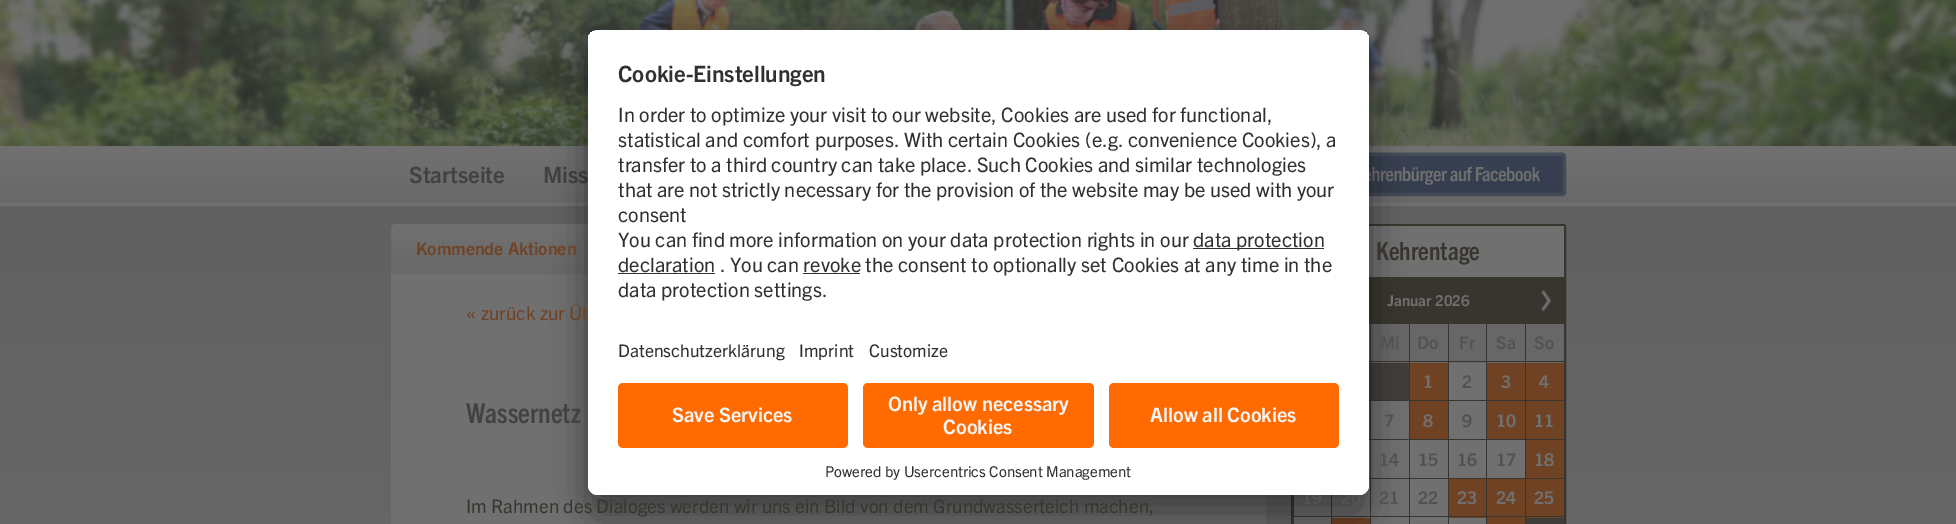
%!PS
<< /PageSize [1956 524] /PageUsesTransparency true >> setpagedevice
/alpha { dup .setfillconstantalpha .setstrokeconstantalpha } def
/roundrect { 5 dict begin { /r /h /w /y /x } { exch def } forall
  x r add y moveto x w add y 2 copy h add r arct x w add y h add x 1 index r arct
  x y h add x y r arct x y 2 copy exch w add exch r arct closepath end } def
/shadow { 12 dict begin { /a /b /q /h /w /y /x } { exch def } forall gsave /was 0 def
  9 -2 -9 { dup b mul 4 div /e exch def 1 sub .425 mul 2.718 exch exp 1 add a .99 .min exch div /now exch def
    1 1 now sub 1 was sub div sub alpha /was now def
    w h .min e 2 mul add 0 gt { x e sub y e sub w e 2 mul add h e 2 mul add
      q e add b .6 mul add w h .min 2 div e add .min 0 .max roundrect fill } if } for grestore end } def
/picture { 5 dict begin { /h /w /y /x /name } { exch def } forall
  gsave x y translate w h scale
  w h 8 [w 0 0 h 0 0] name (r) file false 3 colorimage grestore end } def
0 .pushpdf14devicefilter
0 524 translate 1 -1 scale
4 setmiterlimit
1 setgray
0 0 1956 524 rectfill
(img1.rgb) 0 0 1956 146 picture
0.439 setgray
0 146 1956 60 rectfill
(img2.rgb) 0 159 1956 44 picture
/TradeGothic-Bold [22.5 0 0 -22.5 0 0] selectfont
0.259 setgray
409 183 moveto (Startseite) show
543 183 moveto (Miss) show
(img3.rgb) 1369 152 198 45 picture
(img4.rgb) 0 206 1956 318 picture
0.412 setgray
newpath 396 224 moveto 596 224 lineto 599 224 601 226 601 229 curveto 601 274 lineto 391 274 lineto 391 229 lineto 391 226 393 224 396 224 curveto closepath fill
(img5.rgb) 391 224 197 38 picture
0.22 0.208 0.184 setrgbcolor
1291.5 224.5 274 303 2 roundrect gsave fill grestore
stroke
0.439 setgray
1369 226 195 51 rectfill
0.404 setgray
1369 324 1 39 rectfill
1371 324 38 39 rectfill
1410 324 38 39 rectfill
0.247 0.235 0.224 setrgbcolor
1369 363 1 37 rectfill
1371 363 38 37 rectfill
0.439 0.259 0.141 setrgbcolor
1410 363 38 37 rectfill
0.404 setgray
1449 324 37 39 rectfill
1487 324 38 39 rectfill
1526 324 38 39 rectfill
0.22 0.208 0.184 setrgbcolor
1369 361 196 1 rectfill
0.439 0.259 0.141 setrgbcolor
1369 401 1 38 rectfill
0.439 setgray
1371 401 38 38 rectfill
0.439 0.259 0.141 setrgbcolor
1410 401 38 38 rectfill
0.439 setgray
1369 440 1 38 rectfill
1371 440 38 38 rectfill
1410 440 38 38 rectfill
1294 495 37 23 rectfill
1332 479 38 39 rectfill
1371 479 38 39 rectfill
1410 479 38 39 rectfill
1293 518 38 6 rectfill
0.439 0.259 0.141 setrgbcolor
1449 479 37 39 rectfill
1487 479 38 39 rectfill
1526 479 38 39 rectfill
0.22 0.208 0.184 setrgbcolor
1525 516 40 1 rectfill
0.247 0.235 0.224 setrgbcolor
1525 518 39 6 rectfill
0.22 0.208 0.184 setrgbcolor
1525 516 1 8 rectfill
1486 516 40 1 rectfill
0.439 0.259 0.141 setrgbcolor
1486 518 39 6 rectfill
0.22 0.208 0.184 setrgbcolor
1486 516 1 8 rectfill
1448 516 40 1 rectfill
0.439 setgray
1370 518 116 6 rectfill
0.22 0.208 0.184 setrgbcolor
1448 516 1 8 rectfill
1409 516 40 1 rectfill
1409 516 1 8 rectfill
1370 516 40 1 rectfill
1370 516 1 8 rectfill
1331 516 40 1 rectfill
0.439 0.259 0.141 setrgbcolor
1331 518 39 6 rectfill
0.22 0.208 0.184 setrgbcolor
1331 516 1 8 rectfill
1293 516 40 1 rectfill
1293 516 1 8 rectfill
0.439 setgray
391 274 875 250 rectfill
0 setgray
588 55 781 465 10 17.5 0.3 shadow
588 36 781 465 10 16 0.22 shadow
/TradeGothic-Bold [17.5 0 0 -17.5 0 0] selectfont
0.322 setgray
1302 504 moveto (19) show
1341 504 moveto (20) show
/TradeGothic-Regular [18.75 0 0 -18.75 0 0] selectfont
0.439 0.259 0.141 setrgbcolor
466 320 moveto (« zurück zur Üb) show
1 setgray
588 30 781 465 10 roundrect fill
gsave
588 30 781 465 10 roundrect clip newpath
newpath 598 30 moveto 1359 30 lineto 1364.5 30 1369 34.5 1369 40 curveto 1369 373 lineto 588 373 lineto 588 40 lineto 588 34.5 592.5 30 598 30 curveto closepath clip newpath
588 31 781 342 rectfill
grestore
/TradeGothic-Bold [22.5 0 0 -22.5 0 0] selectfont
0.188 setgray
618 82 moveto (Cookie-Einstellungen) show
/TradeGothic-Regular [20 0 0 -20 0 0] selectfont
618 122 moveto (In order to optimize your visit to our website, Cookies are used for functional,) show
618 147 moveto (statistical and comfort purposes. With certain Cookies \(e.g. convenience Cookies\), a) show
618 172 moveto (transfer to a third country can take place. Such Cookies and similar technologies) show
618 197 moveto (that are not strictly necessary for the provision of the website may be used with your) show
618 222 moveto (consent) show
618 247 moveto (You can find more information on your data protection rights in our) show
1193 248 131 1 rectfill
1193 247 moveto (data protection) show
618 273 97 1 rectfill
618 272 moveto (declaration . You can revoke the consent to optionally set Cookies at any time in the) show
803 273 57 1 rectfill
618 297 moveto (data protection settings.) show
/TradeGothic-Regular [17.5 0 0 -17.5 0 0] selectfont
618 357 moveto (Datenschutzerklärung) show
799 357 moveto (Imprint) show
869 357 moveto (Customize) show
1 setgray
newpath 588 373 moveto 1369 373 lineto 1369 485 lineto 1369 490.5 1364.5 495 1359 495 curveto 598 495 lineto 592.5 495 588 490.5 588 485 curveto closepath fill
1 0.42 0 setrgbcolor
618 383 230 65 5 roundrect fill
/TradeGothic-Bold [20 0 0 -20 0 0] selectfont
0.961 setgray
672 422 moveto (Save Services) show
1 0.42 0 setrgbcolor
863 383 231 65 5 roundrect fill
0.961 setgray
888 411 moveto (Only allow necessary) show
943 434 moveto (Cookies) show
1 0.42 0 setrgbcolor
1109 383 230 65 5 roundrect fill
0.961 setgray
1150 422 moveto (Allow all Cookies) show
/TradeGothic-Regular [15 0 0 -15 0 0] selectfont
0.188 setgray
825 477 moveto (Powered by Usercentrics Consent Management) show
/TradeGothic-Bold [17.5 0 0 -17.5 0 0] selectfont
0.439 0.259 0.141 setrgbcolor
416 255 moveto (Kommende Aktionen) show
/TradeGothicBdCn-Bold [25 0 0 -25 0 0] selectfont
0.22 0.208 0.184 setrgbcolor
1376 260 moveto (Kehrentage) show
/TradeGothic-Bold [15 0 0 -15 0 0] selectfont
0.439 setgray
1387 306 moveto (Januar 2026) show
(img6.rgb) 1541 290 11 22 picture
/TradeGothic-Bold [17.5 0 0 -17.5 0 0] selectfont
0.322 setgray
1380 349 moveto (Mi) show
1417 349 moveto (Do) show
1459 349 moveto (Fr) show
1496 349 moveto (Sa) show
1534 349 moveto (So) show
0.439 setgray
1423 388 moveto (1) show
1449 363 37 37 rectfill
0.322 setgray
1462 388 moveto (2) show
0.439 0.259 0.141 setrgbcolor
1487 363 38 37 rectfill
0.439 setgray
1501 388 moveto (3) show
0.439 0.259 0.141 setrgbcolor
1526 363 38 37 rectfill
0.439 setgray
1539 388 moveto (4) show
0.322 setgray
1384 427 moveto (7) show
0.439 setgray
1423 427 moveto (8) show
1449 401 37 38 rectfill
0.322 setgray
1462 427 moveto (9) show
0.439 0.259 0.141 setrgbcolor
1487 401 38 38 rectfill
0.439 setgray
1496 427 moveto (10) show
0.439 0.259 0.141 setrgbcolor
1526 401 38 38 rectfill
0.439 setgray
1534 427 moveto (11) show
0.322 setgray
1379 466 moveto (14) show
1418 466 moveto (15) show
0.439 setgray
1449 440 37 38 rectfill
0.322 setgray
1457 466 moveto (16) show
0.439 setgray
1487 440 38 38 rectfill
0.322 setgray
1496 466 moveto (17) show
0.439 0.259 0.141 setrgbcolor
1526 440 38 38 rectfill
0.439 setgray
1534 466 moveto (18) show
0.322 setgray
1379 504 moveto (21) show
1418 504 moveto (22) show
0.439 setgray
1457 504 moveto (23) show
1496 504 moveto (24) show
1534 504 moveto (25) show
/TradeGothicBdCn-Bold [27.5 0 0 -27.5 0 0] selectfont
0.259 setgray
466 423 moveto (Wassernetz) show
/TradeGothic-Regular [18.75 0 0 -18.75 0 0] selectfont
0.22 0.208 0.184 setrgbcolor
466 513 moveto (Im Rahmen des Dialoges werden wir uns ein Bild von dem Grundwasserteich machen,) show
.poppdf14devicefilter showpage
